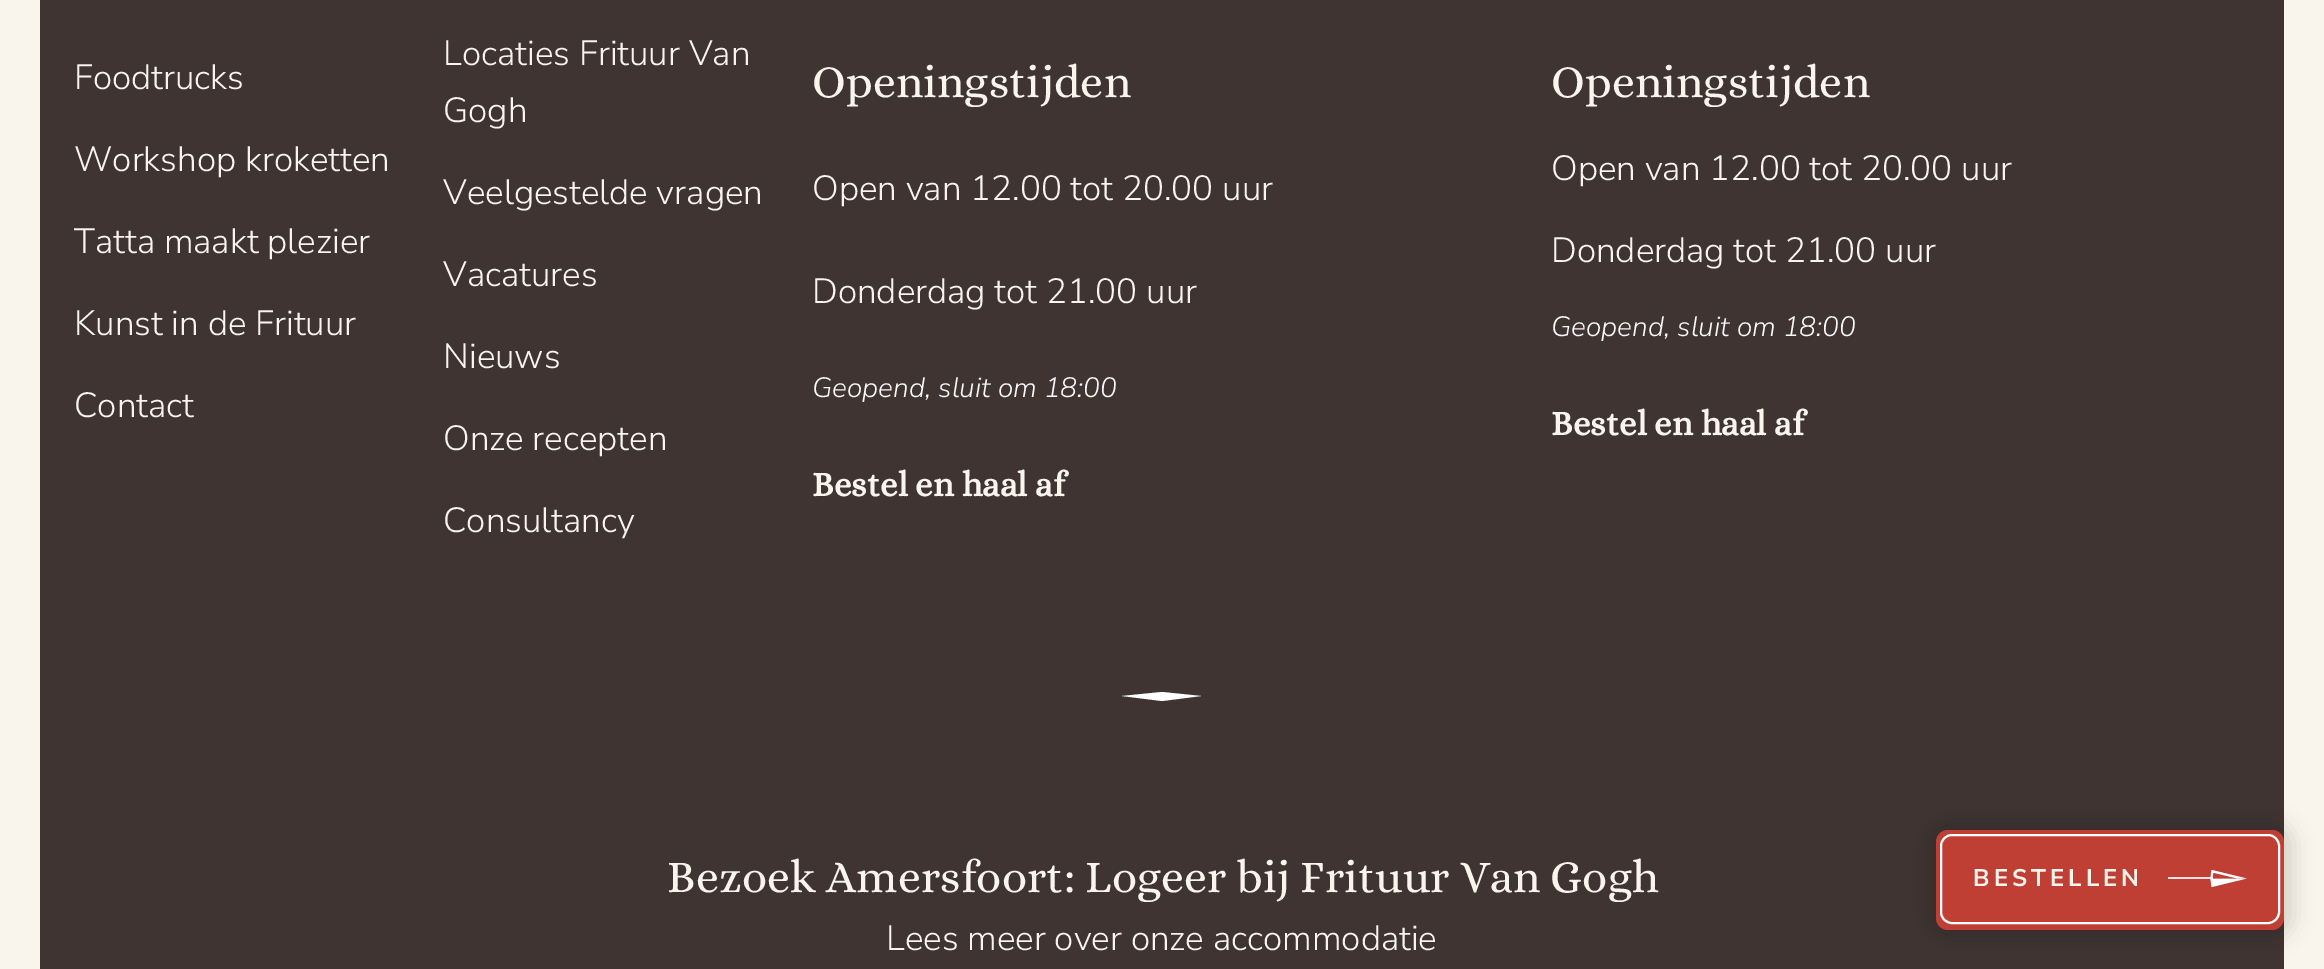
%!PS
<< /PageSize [2324 969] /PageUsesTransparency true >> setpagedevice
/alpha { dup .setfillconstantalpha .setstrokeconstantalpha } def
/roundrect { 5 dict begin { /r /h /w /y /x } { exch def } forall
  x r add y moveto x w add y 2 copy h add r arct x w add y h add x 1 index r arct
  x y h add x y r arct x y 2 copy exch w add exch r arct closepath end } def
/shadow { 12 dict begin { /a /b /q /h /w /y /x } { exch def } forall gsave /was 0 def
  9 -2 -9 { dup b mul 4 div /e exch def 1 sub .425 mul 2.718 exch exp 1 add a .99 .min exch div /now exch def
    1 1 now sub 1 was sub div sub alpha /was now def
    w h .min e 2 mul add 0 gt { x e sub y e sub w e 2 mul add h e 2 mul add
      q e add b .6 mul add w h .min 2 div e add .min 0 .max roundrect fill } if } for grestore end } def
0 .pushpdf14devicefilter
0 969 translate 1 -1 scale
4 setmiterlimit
0.976 0.961 0.929 setrgbcolor
0 0 2324 969 rectfill
0.247 0.204 0.196 setrgbcolor
40 0 2244 969 rectfill
/NunitoSans-Light [35 0 0 -35 0 0] selectfont
0.976 0.961 0.929 setrgbcolor
74 89 moveto (Foodtrucks) show
74 171 moveto (Workshop kroketten) show
74 253 moveto (Tatta maakt plezier) show
74 335 moveto (Kunst in de Frituur) show
74 417 moveto (Contact) show
443 65 moveto (Locaties Frituur Van) show
443 122 moveto (Gogh) show
443 204 moveto (Veelgestelde vragen) show
443 286 moveto (Vacatures) show
443 368 moveto (Nieuws) show
443 450 moveto (Onze recepten) show
443 532 moveto (Consultancy) show
/Alice-Regular [46 0 0 -46 0 0] selectfont
812 97 moveto (Openingstijden) show
/NunitoSans-Light [35 0 0 -35 0 0] selectfont
812 200 moveto (Open van 12.00 tot 20.00 uur) show
812 303 moveto (Donderdag tot 21.00 uur) show
/NunitoSans-LightItalic [28 0 0 -28 0 0] selectfont
0.98 0.976 0.984 setrgbcolor
812 397 moveto (Geopend, sluit om 18:00) show
/Alice-Bold [35 0 0 -35 0 0] selectfont
0.976 0.961 0.929 setrgbcolor
812 496 moveto (Bestel en haal af) show
/Alice-Regular [46 0 0 -46 0 0] selectfont
1551 97 moveto (Openingstijden) show
/NunitoSans-Light [35 0 0 -35 0 0] selectfont
1551 180 moveto (Open van 12.00 tot 20.00 uur) show
1551 262 moveto (Donderdag tot 21.00 uur) show
/NunitoSans-LightItalic [28 0 0 -28 0 0] selectfont
0.98 0.976 0.984 setrgbcolor
1551 336 moveto (Geopend, sluit om 18:00) show
/Alice-Bold [35 0 0 -35 0 0] selectfont
0.976 0.961 0.929 setrgbcolor
1551 435 moveto (Bestel en haal af) show
1 setgray
newpath 1162 692 moveto 1122 696 lineto 1162 701 lineto 1201 696 lineto closepath fill
/Alice-Regular [46 0 0 -46 0 0] selectfont
0.976 0.961 0.929 setrgbcolor
667 892 moveto (Bezoek Amersfoort: Logeer bij Frituur Van Gogh) show
/NunitoSans-Light [35 0 0 -35 0 0] selectfont
886 950 moveto (Lees meer over onze accommodatie) show
0 setgray
1926 820 368 120 22 10 0.14 shadow
0.749 0.247 0.208 setrgbcolor
1936 830 348 100 12 roundrect fill
1 setgray
2 setlinewidth
1941 835 338 88 11 roundrect stroke
/NunitoSans-Bold [24 0 0 -24 0 0] selectfont
0.976 0.961 0.929 setrgbcolor
1973 886 moveto 4 0 (BESTELLEN) ashow
1 setgray
newpath 2246.5 878.5 moveto 2211.5 870 lineto 2210.5 878.5 lineto closepath fill
newpath 2246.5 878.5 moveto 2211.5 887 lineto 2210.5 878.5 lineto closepath fill
0.749 0.247 0.208 setrgbcolor
newpath 2212.5 878.5 moveto 2236.5 878.5 lineto 2213.5 873 lineto closepath fill
0.85 alpha
1 setgray
2168 877 45 2 rectfill
.poppdf14devicefilter showpage
